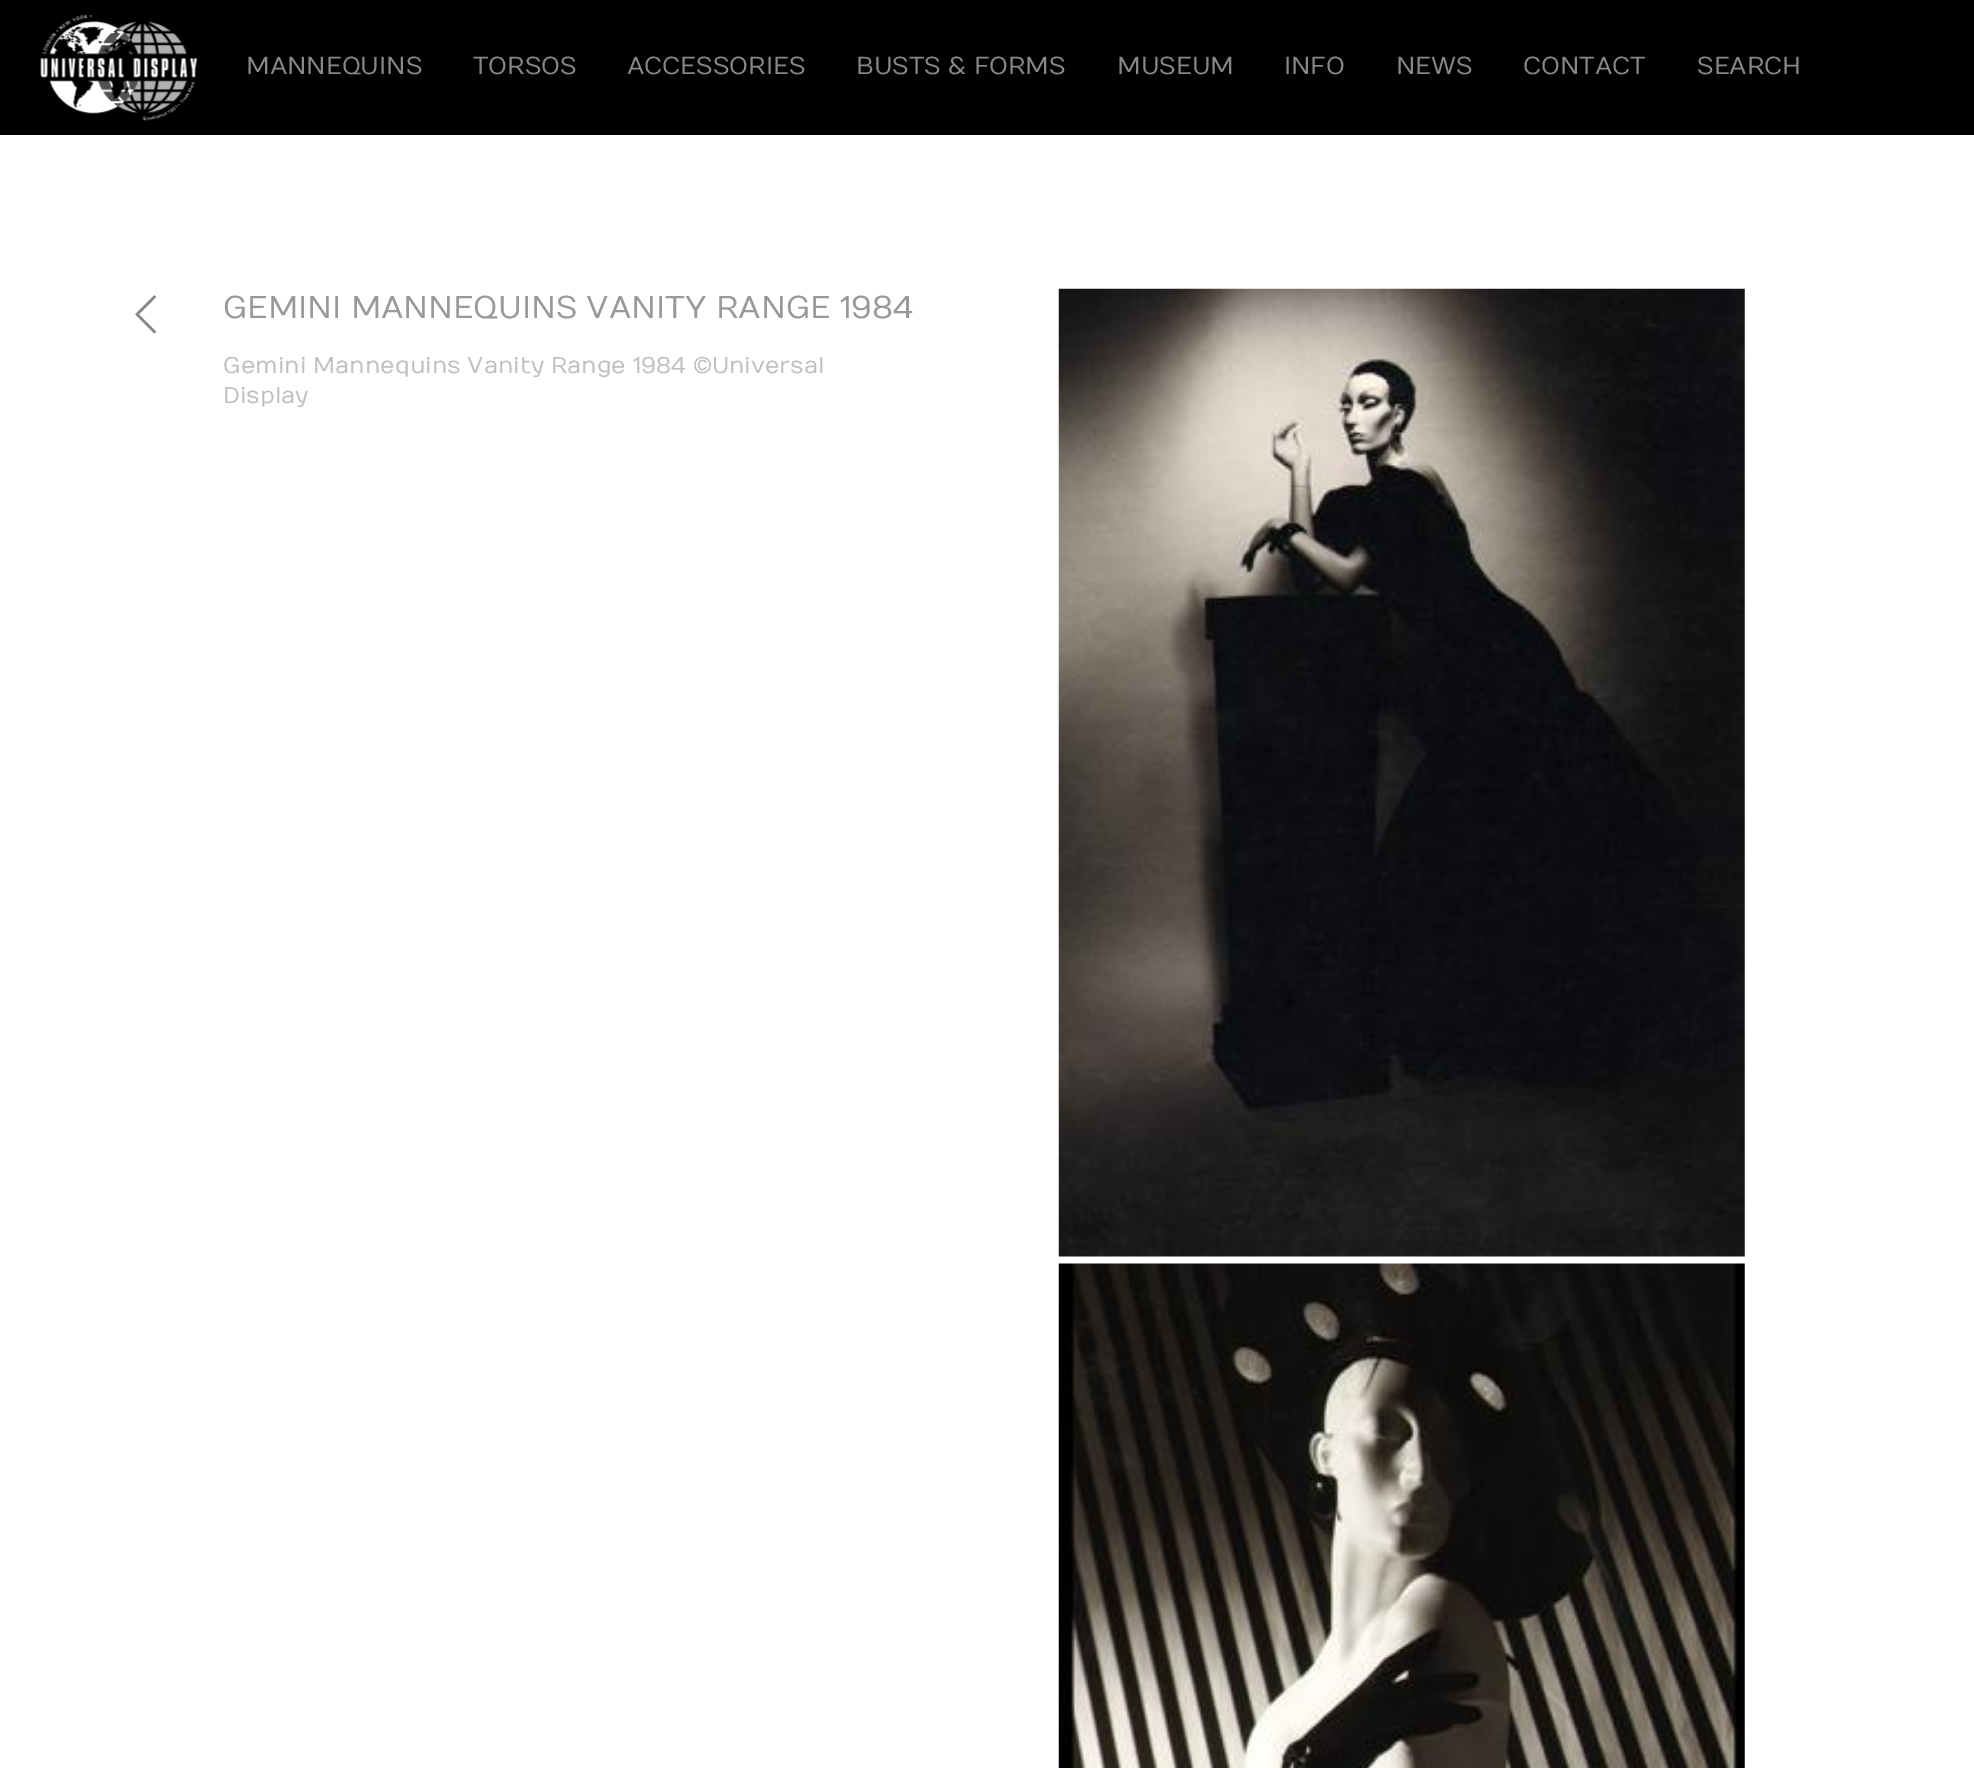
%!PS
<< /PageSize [1974 1768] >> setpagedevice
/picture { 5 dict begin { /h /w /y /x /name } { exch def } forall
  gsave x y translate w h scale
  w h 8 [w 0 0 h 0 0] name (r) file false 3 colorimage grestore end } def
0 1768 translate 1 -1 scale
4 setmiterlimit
1 setgray
0 0 1974 1768 rectfill
0 setgray
0 0 1974 135 rectfill
(img1.rgb) 40 14 158 107 picture
/Numans-Regular [24.5 0 0 -24.5 0 0] selectfont
0.533 setgray
246 74 moveto (MANNEQUINS) show
473 74 moveto (TORSOS) show
627 74 moveto (ACCESSORIES) show
856 74 moveto (BUSTS & FORMS) show
1117 74 moveto (MUSEUM) show
1284 74 moveto (INFO) show
1396 74 moveto (NEWS) show
1523 74 moveto (CONTACT) show
1697 74 moveto (SEARCH) show
(img2.rgb) 135 295 21 39 picture
/Numans-Regular [31.5 0 0 -31.5 0 0] selectfont
0.6 setgray
223 318 moveto (GEMINI MANNEQUINS VANITY RANGE 1984) show
/Numans-Regular [22.75 0 0 -22.75 0 0] selectfont
0.745 0.753 0.741 setrgbcolor
223 373 moveto (Gemini Mannequins Vanity Range 1984 ©Universal) show
223 403 moveto (Display) show
(img3.rgb) 1058 288 687 969 picture
(img4.rgb) 1058 1263 687 505 picture
showpage
